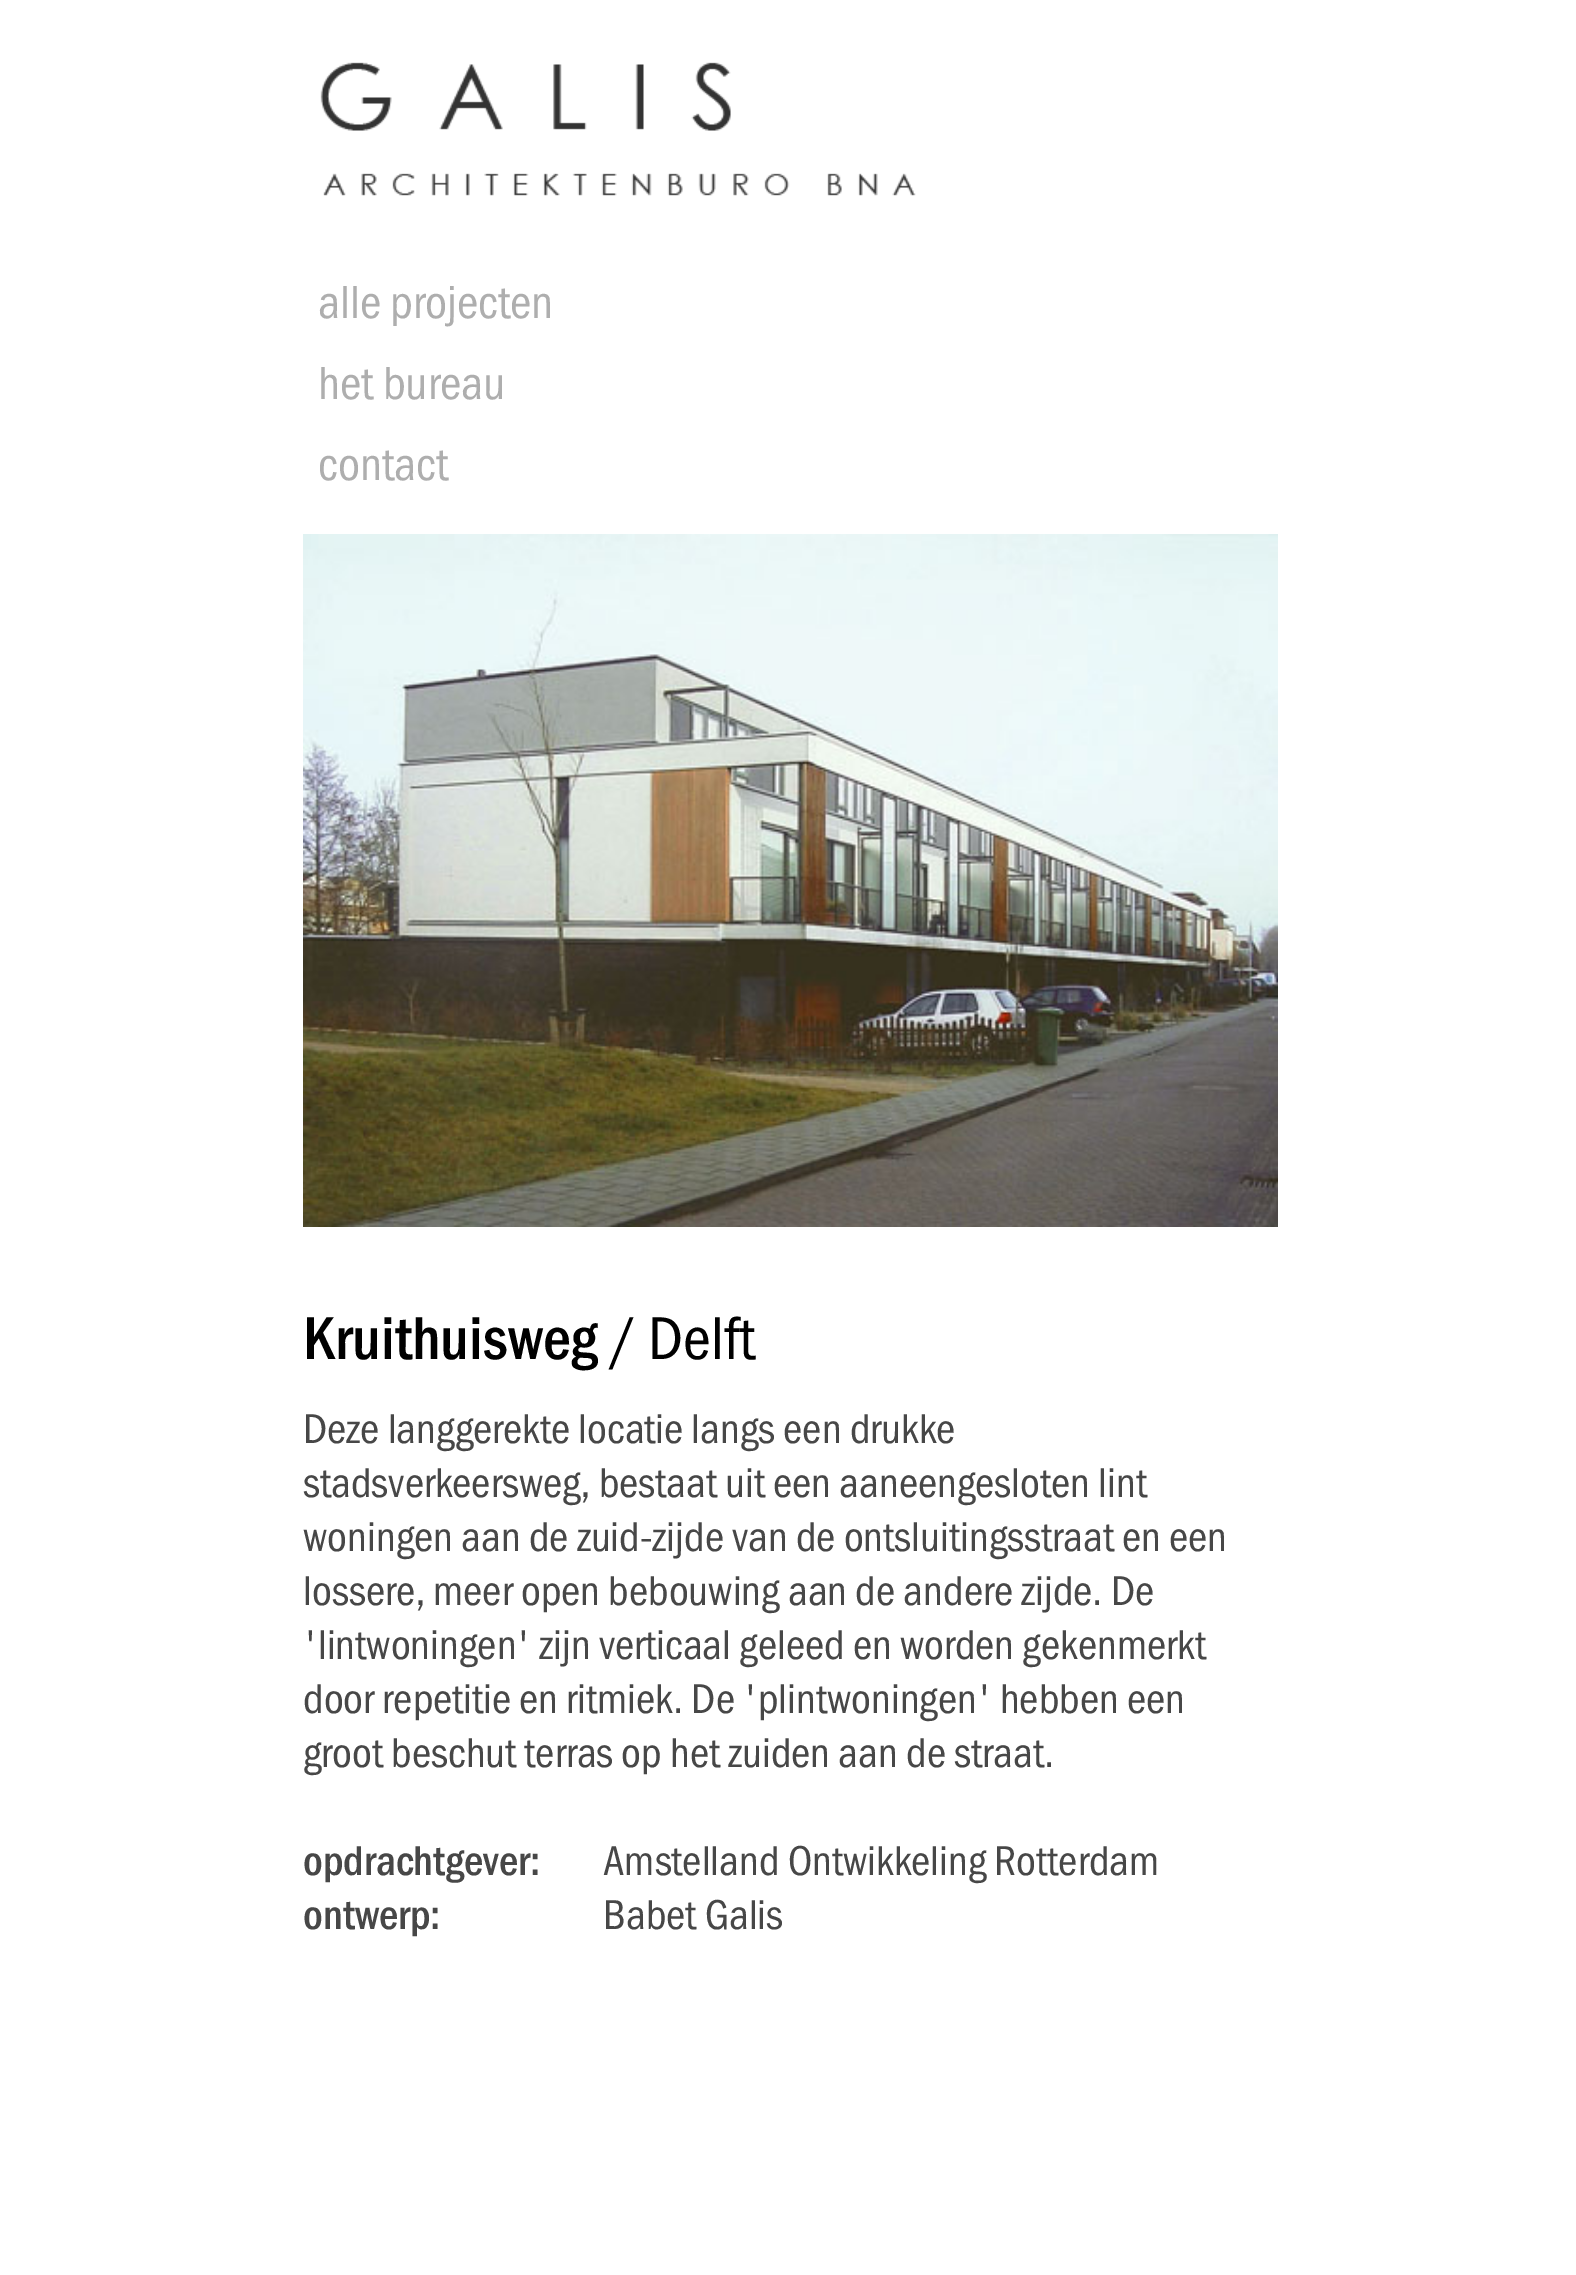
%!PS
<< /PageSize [1576 2275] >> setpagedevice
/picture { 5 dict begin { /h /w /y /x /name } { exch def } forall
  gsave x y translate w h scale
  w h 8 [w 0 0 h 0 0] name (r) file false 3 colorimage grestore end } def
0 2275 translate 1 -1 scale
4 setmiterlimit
1 setgray
0 0 1576 2275 rectfill
(img1.rgb) 320 62 596 134 picture
/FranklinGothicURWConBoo-Regular [48 0 0 -48 0 0] selectfont
0.682 setgray
318 318 moveto (alle projecten) show
318 399 moveto (het bureau) show
318 480 moveto (contact) show
(img2.rgb) 303 534 975 693 picture
/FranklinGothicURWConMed-Regular [62.5 0 0 -62.5 0 0] selectfont
0 setgray
303 1359 moveto (Kruithuisweg) show
/FranklinGothicURWConBoo-Regular [62.5 0 0 -62.5 0 0] selectfont
609 1359 moveto (/ Delft) show
/FranklinGothicURWConBoo-Regular [43.2 0 0 -43.2 0 0] selectfont
0.278 setgray
303 1443 moveto (Deze langgerekte locatie langs een drukke) show
303 1497 moveto (stadsverkeersweg, bestaat uit een aaneengesloten lint) show
303 1551 moveto (woningen aan de zuid-zijde van de ontsluitingsstraat en een) show
303 1605 moveto (lossere, meer open bebouwing aan de andere zijde. De) show
303 1659 moveto ('lintwoningen' zijn verticaal geleed en worden gekenmerkt) show
303 1713 moveto (door repetitie en ritmiek. De 'plintwoningen' hebben een) show
303 1767 moveto (groot beschut terras op het zuiden aan de straat.) show
/FranklinGothicURWConMed-Regular [43.2 0 0 -43.2 0 0] selectfont
303 1875 moveto (opdrachtgever:) show
/FranklinGothicURWConBoo-Regular [43.2 0 0 -43.2 0 0] selectfont
603 1875 moveto (Amstelland Ontwikkeling Rotterdam) show
/FranklinGothicURWConMed-Regular [43.2 0 0 -43.2 0 0] selectfont
303 1929 moveto (ontwerp:) show
/FranklinGothicURWConBoo-Regular [43.2 0 0 -43.2 0 0] selectfont
603 1929 moveto (Babet Galis) show
showpage
